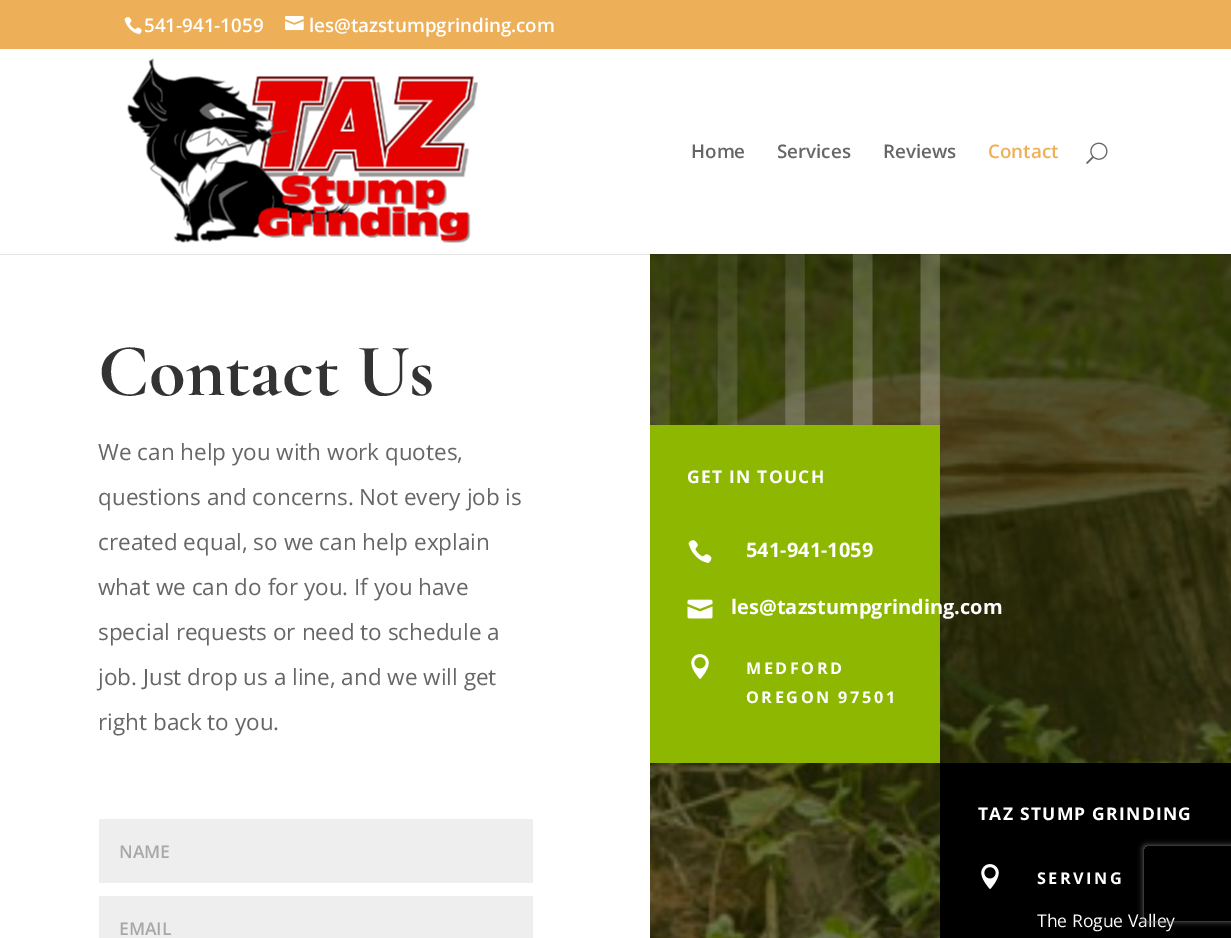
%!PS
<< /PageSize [1231 938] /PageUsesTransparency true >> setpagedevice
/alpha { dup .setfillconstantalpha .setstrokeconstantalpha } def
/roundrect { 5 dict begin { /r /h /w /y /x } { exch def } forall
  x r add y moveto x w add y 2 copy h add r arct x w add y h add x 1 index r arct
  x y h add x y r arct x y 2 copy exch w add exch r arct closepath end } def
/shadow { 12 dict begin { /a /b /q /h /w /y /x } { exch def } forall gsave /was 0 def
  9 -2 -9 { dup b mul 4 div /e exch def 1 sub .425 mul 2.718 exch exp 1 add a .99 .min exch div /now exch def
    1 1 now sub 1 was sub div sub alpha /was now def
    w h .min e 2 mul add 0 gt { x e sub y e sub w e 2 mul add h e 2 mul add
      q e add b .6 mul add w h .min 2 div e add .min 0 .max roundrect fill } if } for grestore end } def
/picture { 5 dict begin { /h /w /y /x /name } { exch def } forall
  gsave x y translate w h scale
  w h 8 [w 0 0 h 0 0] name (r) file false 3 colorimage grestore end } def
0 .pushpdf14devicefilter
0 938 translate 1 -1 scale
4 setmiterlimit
1 setgray
0 0 1231 938 rectfill
0.929 0.69 0.349 setrgbcolor
0 0 1231 49 rectfill
(img1.rgb) 124 17 18 18 picture
/OpenSans-SemiBold [18.75 0 0 -18.75 0 0] selectfont
1 setgray
144 32 moveto (541-941-1059) show
(img2.rgb) 285 16 19 15 picture
309 32 moveto (les@tazstumpgrinding.com) show
(img5.rgb) 650 254 581 684 picture
0.553 0.718 0 setrgbcolor
650 425 290 338 rectfill
(img6.rgb) 650 254 291 172 picture
0.1 alpha
0 setgray
0 254 1231 1 rectfill
1 alpha
(img3.rgb) 127 58 351 185 picture
0.4 setgray
691 158 moveto (Home) show
777 158 moveto (Services) show
883 158 moveto (Reviews) show
0.929 0.69 0.349 setrgbcolor
988 158 moveto (Contact) show
(img4.rgb) 1086 142 22 22 picture
/CormorantGaramond-Light [75 0 0 -75 0 0] selectfont
0.2 setgray
98 395 moveto (Contact Us) show
/OpenSans-Regular [22.5 0 0 -22.5 0 0] selectfont
0.4 setgray
98 460 moveto (We can help you with work quotes,) show
98 505 moveto (questions and concerns. Not every job is) show
98 550 moveto (created equal, so we can help explain) show
98 595 moveto (what we can do for you. If you have) show
98 640 moveto (special requests or need to schedule a) show
98 685 moveto (job. Just drop us a line, and we will get) show
98 730 moveto (right back to you.) show
0.933 setgray
99 819 434 64 rectfill
/OpenSans-SemiBold [17.5 0 0 -17.5 0 0] selectfont
0.655 setgray
119 858 moveto (NAME) show
0.933 setgray
99 896 434 42 rectfill
0.655 setgray
119 935 moveto (EMAIL) show
/OpenSans-Bold [17.5 0 0 -17.5 0 0] selectfont
1 setgray
687 483 moveto 1.25 0 (GET IN TOUCH) ashow
(img7.rgb) 688 540 24 23 picture
/OpenSans-Bold [20 0 0 -20 0 0] selectfont
746 557 moveto (541-941-1059) show
(img8.rgb) 687 599 26 20 picture
731 614 moveto (les@tazstumpgrinding.com) show
(img9.rgb) 691 654 18 25 picture
/OpenSans-Bold [16.25 0 0 -16.25 0 0] selectfont
746 674 moveto 2.5 0 (MEDFORD) ashow
746 703 moveto 2.5 0 (OREGON 97501) ashow
0 setgray
940 763 291 175 rectfill
/OpenSans-Bold [17.5 0 0 -17.5 0 0] selectfont
1 setgray
978 820 moveto 1.25 0 (TAZ STUMP GRINDING) ashow
(img10.rgb) 981 864 18 25 picture
/OpenSans-Bold [16.25 0 0 -16.25 0 0] selectfont
1037 884 moveto 2.5 0 (SERVING) ashow
/OpenSans-Regular [17.5 0 0 -17.5 0 0] selectfont
1037 927 moveto (The Rogue Valley) show
gsave
newpath 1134 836 moveto 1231 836 lineto 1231 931 lineto 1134 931 lineto closepath 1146.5 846 moveto 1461.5 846 lineto 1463 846 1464 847 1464 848.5 curveto 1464 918.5 lineto 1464 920 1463 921 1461.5 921 curveto 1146.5 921 lineto 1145 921 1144 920 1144 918.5 curveto 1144 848.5 lineto 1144 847 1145 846 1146.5 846 curveto closepath eoclip newpath
0.502 setgray
1144 846 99 75 2.5 3 1 shadow
grestore
.poppdf14devicefilter showpage
